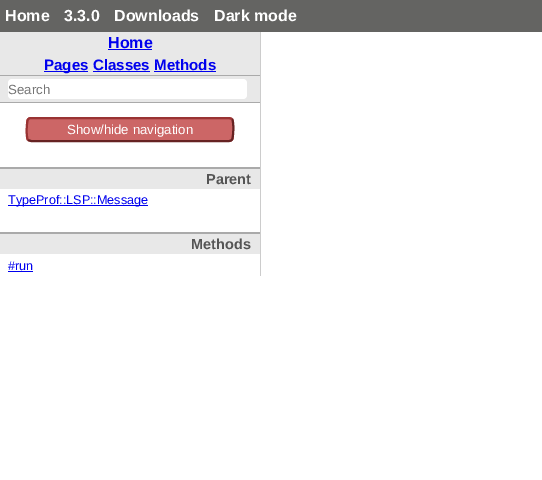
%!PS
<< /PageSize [542 480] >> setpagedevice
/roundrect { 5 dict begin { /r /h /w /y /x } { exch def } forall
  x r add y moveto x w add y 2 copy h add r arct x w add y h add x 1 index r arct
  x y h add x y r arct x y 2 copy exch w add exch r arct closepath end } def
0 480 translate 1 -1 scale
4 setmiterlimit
1 setgray
0 0 542 480 rectfill
0.392 0.392 0.384 setrgbcolor
0 0 542 32 rectfill
/LiberationSans-Bold [16 0 0 -16 0 0] selectfont
1 setgray
5 21 moveto (Home) show
64 21 moveto (3.3.0) show
114 21 moveto (Downloads) show
214 21 moveto (Dark mode) show
0.8 setgray
260 32 1 244 rectfill
0.91 setgray
0 32 260 43 rectfill
0 0 0.933 setrgbcolor
108 48 moveto (Home) show
108 49 44 1 rectfill
44 71 44 1 rectfill
/LiberationSans-Bold [15.1 0 0 -15.1 0 0] selectfont
44 70 moveto (Pages Classes Methods) show
93 71 57 1 rectfill
154 71 62 1 rectfill
0.91 setgray
0 76 260 26 rectfill
0.667 setgray
0 75 260 1 rectfill
0 102 260 1 rectfill
1 setgray
8 79 239 20 4 roundrect fill
/LiberationSans-Regular [13.25 0 0 -13.25 0 0] selectfont
0.459 setgray
8 94 moveto (Search) show
0.8 0.4 0.4 setrgbcolor
26 117 208 25 5 roundrect fill
0.4 0.133 0.133 setrgbcolor
2 setlinewidth
newpath 232 119 moveto 234 121 233.5 137.5 232 139.5 curveto 231.5 140.5 230 141 229 141 curveto 31 141 lineto 28 140 lineto stroke
0.6 0.2 0.2 setrgbcolor
newpath 28 140 moveto 26 138 26.5 121.5 28 119.5 curveto 28.5 118.5 30 118 31 118 curveto 229 118 lineto 232 119 lineto stroke
1 setgray
67 134 moveto (Show/hide navigation) show
0.667 setgray
0 167 260 2 rectfill
0.91 setgray
0 169 260 20 rectfill
/LiberationSans-Bold [14.5 0 0 -14.5 0 0] selectfont
0.333 setgray
206 184 moveto (Parent) show
0 0 0.933 setrgbcolor
8 205 140 1 rectfill
/LiberationSans-Regular [12.6 0 0 -12.6 0 0] selectfont
8 204 moveto (TypeProf::LSP::Message) show
0.667 setgray
0 232 260 2 rectfill
0.91 setgray
0 234 260 20 rectfill
/LiberationSans-Bold [14.5 0 0 -14.5 0 0] selectfont
0.333 setgray
191 249 moveto (Methods) show
/LiberationSans-Regular [12.6 0 0 -12.6 0 0] selectfont
0 0 0.933 setrgbcolor
8 270 moveto (#run) show
8 271 25 1 rectfill
showpage
